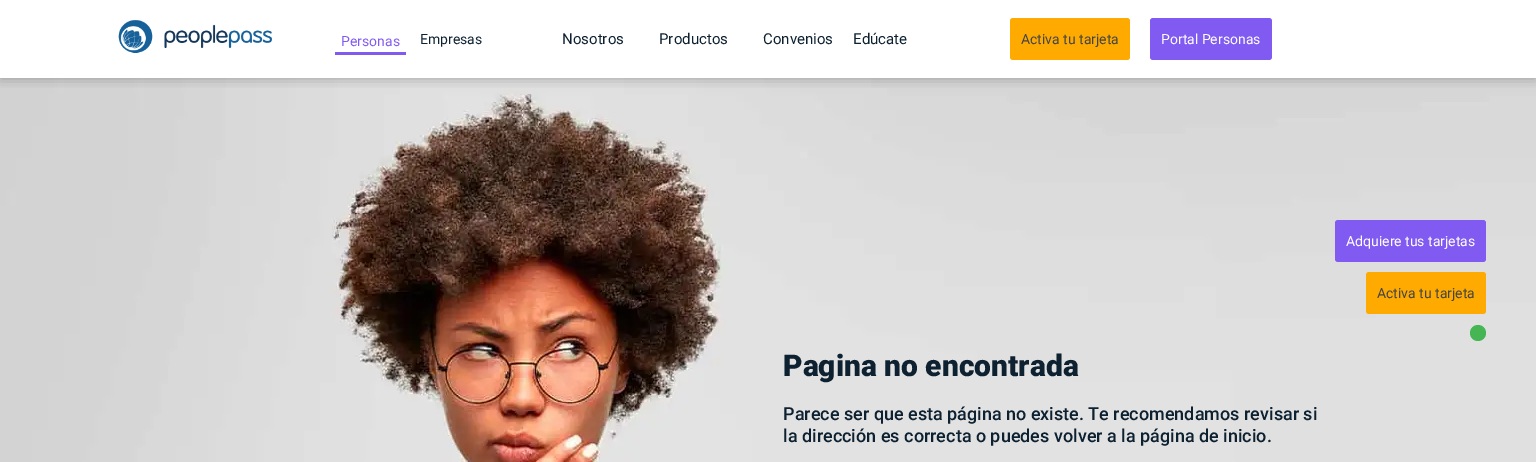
%!PS
<< /PageSize [1536 462] /PageUsesTransparency true >> setpagedevice
/alpha { dup .setfillconstantalpha .setstrokeconstantalpha } def
/roundrect { 5 dict begin { /r /h /w /y /x } { exch def } forall
  x r add y moveto x w add y 2 copy h add r arct x w add y h add x 1 index r arct
  x y h add x y r arct x y 2 copy exch w add exch r arct closepath end } def
/shadow { 12 dict begin { /a /b /q /h /w /y /x } { exch def } forall gsave /was 0 def
  9 -2 -9 { dup b mul 4 div /e exch def 1 sub .425 mul 2.718 exch exp 1 add a .99 .min exch div /now exch def
    1 1 now sub 1 was sub div sub alpha /was now def
    w h .min e 2 mul add 0 gt { x e sub y e sub w e 2 mul add h e 2 mul add
      q e add b .6 mul add w h .min 2 div e add .min 0 .max roundrect fill } if } for grestore end } def
/picture { 5 dict begin { /h /w /y /x /name } { exch def } forall
  gsave x y translate w h scale
  w h 8 [w 0 0 h 0 0] name (r) file false 3 colorimage grestore end } def
0 .pushpdf14devicefilter
0 462 translate 1 -1 scale
4 setmiterlimit
1 setgray
0 0 1536 462 rectfill
(img2.rgb) 0 78 1536 384 picture
gsave
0 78 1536 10 rectclip
0 setgray
0 0 1536 78 0 6.5 0.28 shadow
grestore
(img1.rgb) 118 20 154 33 picture
0.506 0.353 0.949 setrgbcolor
335 52 71 3 rectfill
/Roboto-Regular [14 0 0 -14 0 0] selectfont
341 46 moveto (Personas) show
0.051 0.129 0.192 setrgbcolor
420 44 moveto (Empresas) show
/Roboto-Regular [15 0 0 -15 0 0] selectfont
562 44 moveto (Nosotros) show
659 44 moveto (Productos) show
763 44 moveto (Convenios) show
853 44 moveto (Edúcate) show
0.996 0.667 0 setrgbcolor
1010 18 120 42 3 roundrect fill
/Roboto-Regular [14 0 0 -14 0 0] selectfont
0.267 setgray
1021 44 moveto (Activa tu tarjeta) show
0.506 0.353 0.949 setrgbcolor
1150 18 122 42 3 roundrect fill
1 setgray
1161 44 moveto (Portal Personas) show
0.506 0.353 0.949 setrgbcolor
1335 220 151 42 3 roundrect fill
1 setgray
1346 246 moveto (Adquiere tus tarjetas) show
0.996 0.667 0 setrgbcolor
1366 272 120 42 3 roundrect fill
0.267 setgray
1377 298 moveto (Activa tu tarjeta) show
0.275 0.71 0.329 setrgbcolor
newpath 1478 333 8 0 360 arc closepath fill
/Roboto-Black [30 0 0 -30 0 0] selectfont
0.051 0.129 0.192 setrgbcolor
783 376 moveto (Pagina no encontrada) show
/Roboto-Medium [18 0 0 -18 0 0] selectfont
783 420 moveto (Parece ser que esta página no existe. Te recomendamos revisar si) show
783 442 moveto (la dirección es correcta o puedes volver a la página de inicio.) show
.poppdf14devicefilter showpage
